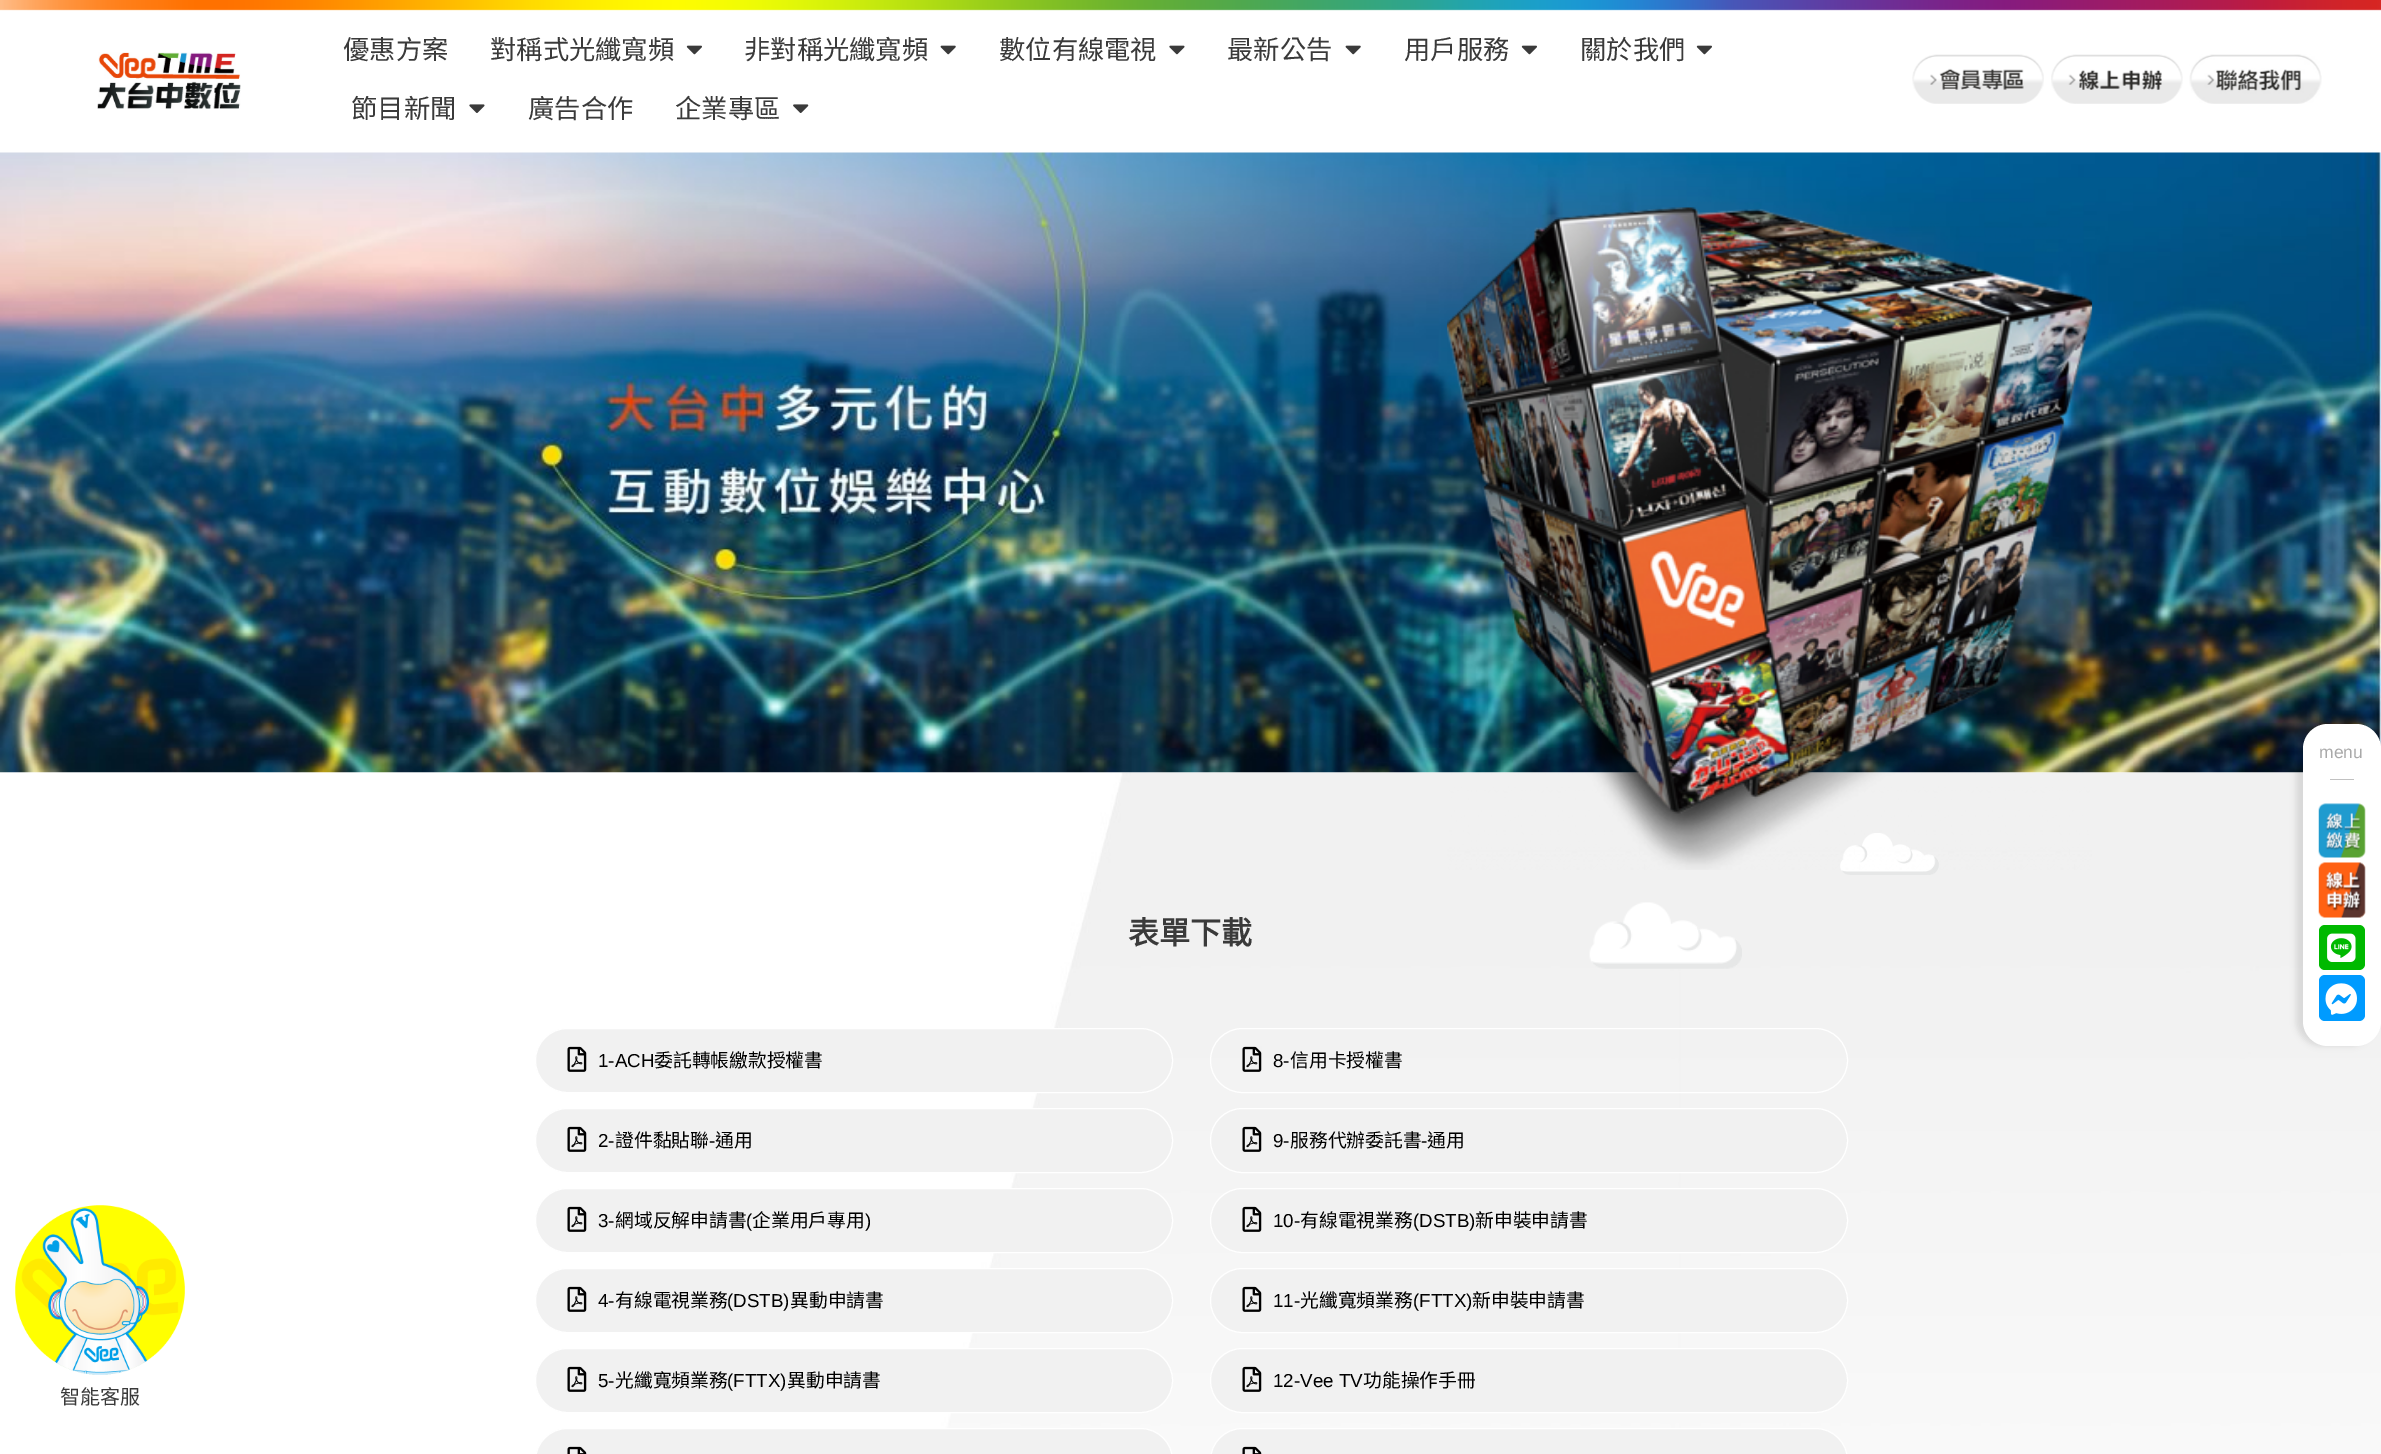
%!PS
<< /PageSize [2381 1454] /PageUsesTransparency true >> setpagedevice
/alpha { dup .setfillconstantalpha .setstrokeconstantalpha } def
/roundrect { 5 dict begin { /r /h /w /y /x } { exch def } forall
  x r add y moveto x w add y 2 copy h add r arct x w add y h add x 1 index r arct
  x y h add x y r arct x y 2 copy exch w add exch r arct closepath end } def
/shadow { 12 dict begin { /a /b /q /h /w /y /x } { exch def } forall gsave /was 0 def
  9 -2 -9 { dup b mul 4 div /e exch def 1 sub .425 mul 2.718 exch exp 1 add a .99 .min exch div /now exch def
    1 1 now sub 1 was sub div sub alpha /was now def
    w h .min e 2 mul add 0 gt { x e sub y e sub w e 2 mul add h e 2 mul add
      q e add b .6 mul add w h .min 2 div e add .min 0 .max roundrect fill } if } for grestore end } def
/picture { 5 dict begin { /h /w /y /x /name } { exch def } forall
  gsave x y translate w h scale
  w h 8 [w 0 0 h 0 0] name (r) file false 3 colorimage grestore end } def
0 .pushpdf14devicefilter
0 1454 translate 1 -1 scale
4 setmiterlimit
1 setgray
0 0 2381 1454 rectfill
(img1.rgb) 0 0 2381 11 picture
(img2.rgb) 97 52 144 57 picture
/NotoSansCJKTC-Regular [26.25 0 0 -26.25 0 0] selectfont
0.227 setgray
343 59 moveto (優惠方案) show
490 59 moveto (對稱式光纖寬頻) show
(img3.rgb) 686 45 16 10 picture
744 59 moveto (非對稱光纖寬頻) show
(img4.rgb) 940 45 16 10 picture
999 59 moveto (數位有線電視) show
(img5.rgb) 1169 45 16 10 picture
1227 59 moveto (最新公告) show
(img4.rgb) 1345 45 16 10 picture
1404 59 moveto (用戶服務) show
(img3.rgb) 1521 45 16 10 picture
1580 59 moveto (關於我們) show
(img3.rgb) 1696 45 16 10 picture
351 118 moveto (節目新聞) show
(img6.rgb) 469 104 16 9 picture
528 118 moveto (廣告合作) show
675 118 moveto (企業專區) show
(img7.rgb) 793 104 16 9 picture
(img8.rgb) 1912 54 132 50 picture
(img9.rgb) 2051 54 132 50 picture
(img10.rgb) 2189 54 133 50 picture
(img15.rgb) 0 152 2381 621 picture
(img17.rgb) 0 772 2381 682 picture
0 setgray
2296 724 79 322 25 3 0.1 shadow
1 setgray
2303 724 78 322 25 roundrect fill
/LiberationSans-Regular [17.5 0 0 -17.5 0 0] selectfont
0.663 setgray
2319 758 moveto (menu) show
0.757 setgray
2330 779 24 1 rectfill
(img11.rgb) 2318 803 48 55 picture
(img12.rgb) 2318 862 48 56 picture
0 0.725 0 setrgbcolor
2319 925 46 45 6 roundrect fill
(img13.rgb) 2327 933 29 29 picture
0 0.608 1 setrgbcolor
2319 975 46 46 6 roundrect fill
(img14.rgb) 2325 983 32 32 picture
(img18.rgb) 1840 833 99 42 picture
(img16.rgb) 1447 207 646 663 picture
/NotoSansCJKTC-Bold [31 0 0 -31 0 0] selectfont
0.227 setgray
1128 944 moveto (表單下載) show
(img19.rgb) 1589 902 153 67 picture
0.945 setgray
535.5 1028.5 637 64 32 roundrect gsave fill grestore
1 setgray
stroke
(img20.rgb) 567 1046 20 26 picture
/LiberationSans-Regular [18.75 0 0 -18.75 0 0] selectfont
0 setgray
598 1067 moveto (1-ACH) show
/NotoSansCJKTC-Regular [18.75 0 0 -18.75 0 0] selectfont
654 1067 moveto (委託轉帳繳款授權書) show
1 setgray
1210.5 1028.5 637 64 32 roundrect stroke
(img20.rgb) 1242 1046 20 26 picture
/LiberationSans-Regular [18.75 0 0 -18.75 0 0] selectfont
0 setgray
1273 1067 moveto (8-) show
/NotoSansCJKTC-Regular [18.75 0 0 -18.75 0 0] selectfont
1290 1067 moveto (信用卡授權書) show
0.945 setgray
535.5 1108.5 637 64 32 roundrect gsave fill grestore
1 setgray
stroke
(img20.rgb) 567 1126 20 26 picture
/LiberationSans-Regular [18.75 0 0 -18.75 0 0] selectfont
0 setgray
598 1147 moveto (2-) show
/NotoSansCJKTC-Regular [18.75 0 0 -18.75 0 0] selectfont
615 1147 moveto (證件黏貼聯) show
/LiberationSans-Regular [18.75 0 0 -18.75 0 0] selectfont
709 1147 moveto (-) show
/NotoSansCJKTC-Regular [18.75 0 0 -18.75 0 0] selectfont
715 1147 moveto (通用) show
0.945 setgray
1210.5 1108.5 637 64 32 roundrect gsave fill grestore
1 setgray
stroke
(img20.rgb) 1242 1126 20 26 picture
/LiberationSans-Regular [18.75 0 0 -18.75 0 0] selectfont
0 setgray
1273 1147 moveto (9-) show
/NotoSansCJKTC-Regular [18.75 0 0 -18.75 0 0] selectfont
1290 1147 moveto (服務代辦委託書) show
/LiberationSans-Regular [18.75 0 0 -18.75 0 0] selectfont
1421 1147 moveto (-) show
/NotoSansCJKTC-Regular [18.75 0 0 -18.75 0 0] selectfont
1427 1147 moveto (通用) show
0.945 setgray
535.5 1188.5 637 64 32 roundrect gsave fill grestore
1 setgray
stroke
(img20.rgb) 567 1206 20 26 picture
/LiberationSans-Regular [18.75 0 0 -18.75 0 0] selectfont
0 setgray
598 1227 moveto (3-) show
/NotoSansCJKTC-Regular [18.75 0 0 -18.75 0 0] selectfont
615 1227 moveto (網域反解申請書) show
/LiberationSans-Regular [18.75 0 0 -18.75 0 0] selectfont
746 1227 moveto (\() show
/NotoSansCJKTC-Regular [18.75 0 0 -18.75 0 0] selectfont
752 1227 moveto (企業用戶專用) show
/LiberationSans-Regular [18.75 0 0 -18.75 0 0] selectfont
865 1227 moveto (\)) show
0.945 setgray
1210.5 1188.5 637 64 32 roundrect gsave fill grestore
1 setgray
stroke
(img20.rgb) 1242 1206 20 26 picture
0 setgray
1273 1227 moveto (10-) show
/NotoSansCJKTC-Regular [18.75 0 0 -18.75 0 0] selectfont
1300 1227 moveto (有線電視業務) show
/LiberationSans-Regular [18.75 0 0 -18.75 0 0] selectfont
1413 1227 moveto (\(DSTB\)) show
/NotoSansCJKTC-Regular [18.75 0 0 -18.75 0 0] selectfont
1475 1227 moveto (新申裝申請書) show
0.945 setgray
535.5 1268.5 637 64 32 roundrect gsave fill grestore
1 setgray
stroke
(img20.rgb) 567 1286 20 26 picture
/LiberationSans-Regular [18.75 0 0 -18.75 0 0] selectfont
0 setgray
598 1307 moveto (4-) show
/NotoSansCJKTC-Regular [18.75 0 0 -18.75 0 0] selectfont
615 1307 moveto (有線電視業務) show
/LiberationSans-Regular [18.75 0 0 -18.75 0 0] selectfont
727 1307 moveto (\(DSTB\)) show
/NotoSansCJKTC-Regular [18.75 0 0 -18.75 0 0] selectfont
790 1307 moveto (異動申請書) show
0.945 setgray
1210.5 1268.5 637 64 32 roundrect gsave fill grestore
1 setgray
stroke
(img20.rgb) 1242 1286 20 26 picture
/LiberationSans-Regular [18.75 0 0 -18.75 0 0] selectfont
0 setgray
1273 1307 moveto (11-) show
/NotoSansCJKTC-Regular [18.75 0 0 -18.75 0 0] selectfont
1300 1307 moveto (光纖寬頻業務) show
/LiberationSans-Regular [18.75 0 0 -18.75 0 0] selectfont
1413 1307 moveto (\(FTTX\)) show
/NotoSansCJKTC-Regular [18.75 0 0 -18.75 0 0] selectfont
1472 1307 moveto (新申裝申請書) show
0.945 setgray
535.5 1348.5 637 64 32 roundrect gsave fill grestore
1 setgray
stroke
(img20.rgb) 567 1366 20 26 picture
/LiberationSans-Regular [18.75 0 0 -18.75 0 0] selectfont
0 setgray
598 1387 moveto (5-) show
/NotoSansCJKTC-Regular [18.75 0 0 -18.75 0 0] selectfont
615 1387 moveto (光纖寬頻業務) show
/LiberationSans-Regular [18.75 0 0 -18.75 0 0] selectfont
727 1387 moveto (\(FTTX\)) show
/NotoSansCJKTC-Regular [18.75 0 0 -18.75 0 0] selectfont
787 1387 moveto (異動申請書) show
0.945 setgray
1210.5 1348.5 637 64 32 roundrect gsave fill grestore
1 setgray
stroke
(img20.rgb) 1242 1366 20 26 picture
/LiberationSans-Regular [18.75 0 0 -18.75 0 0] selectfont
0 setgray
1273 1387 moveto (12-Vee TV) show
/NotoSansCJKTC-Regular [18.75 0 0 -18.75 0 0] selectfont
1363 1387 moveto (功能操作手冊) show
0.945 setgray
535.5 1428.5 637 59 32 roundrect gsave fill grestore
1 setgray
stroke
(img21.rgb) 567 1446 20 8 picture
0.945 setgray
1210.5 1428.5 637 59 32 roundrect gsave fill grestore
1 setgray
stroke
(img21.rgb) 1242 1446 20 8 picture
(img22.rgb) 15 1205 170 170 picture
/NotoSansCJKTC-Regular [20 0 0 -20 0 0] selectfont
0.227 setgray
60 1404 moveto (智能客服) show
.poppdf14devicefilter showpage
